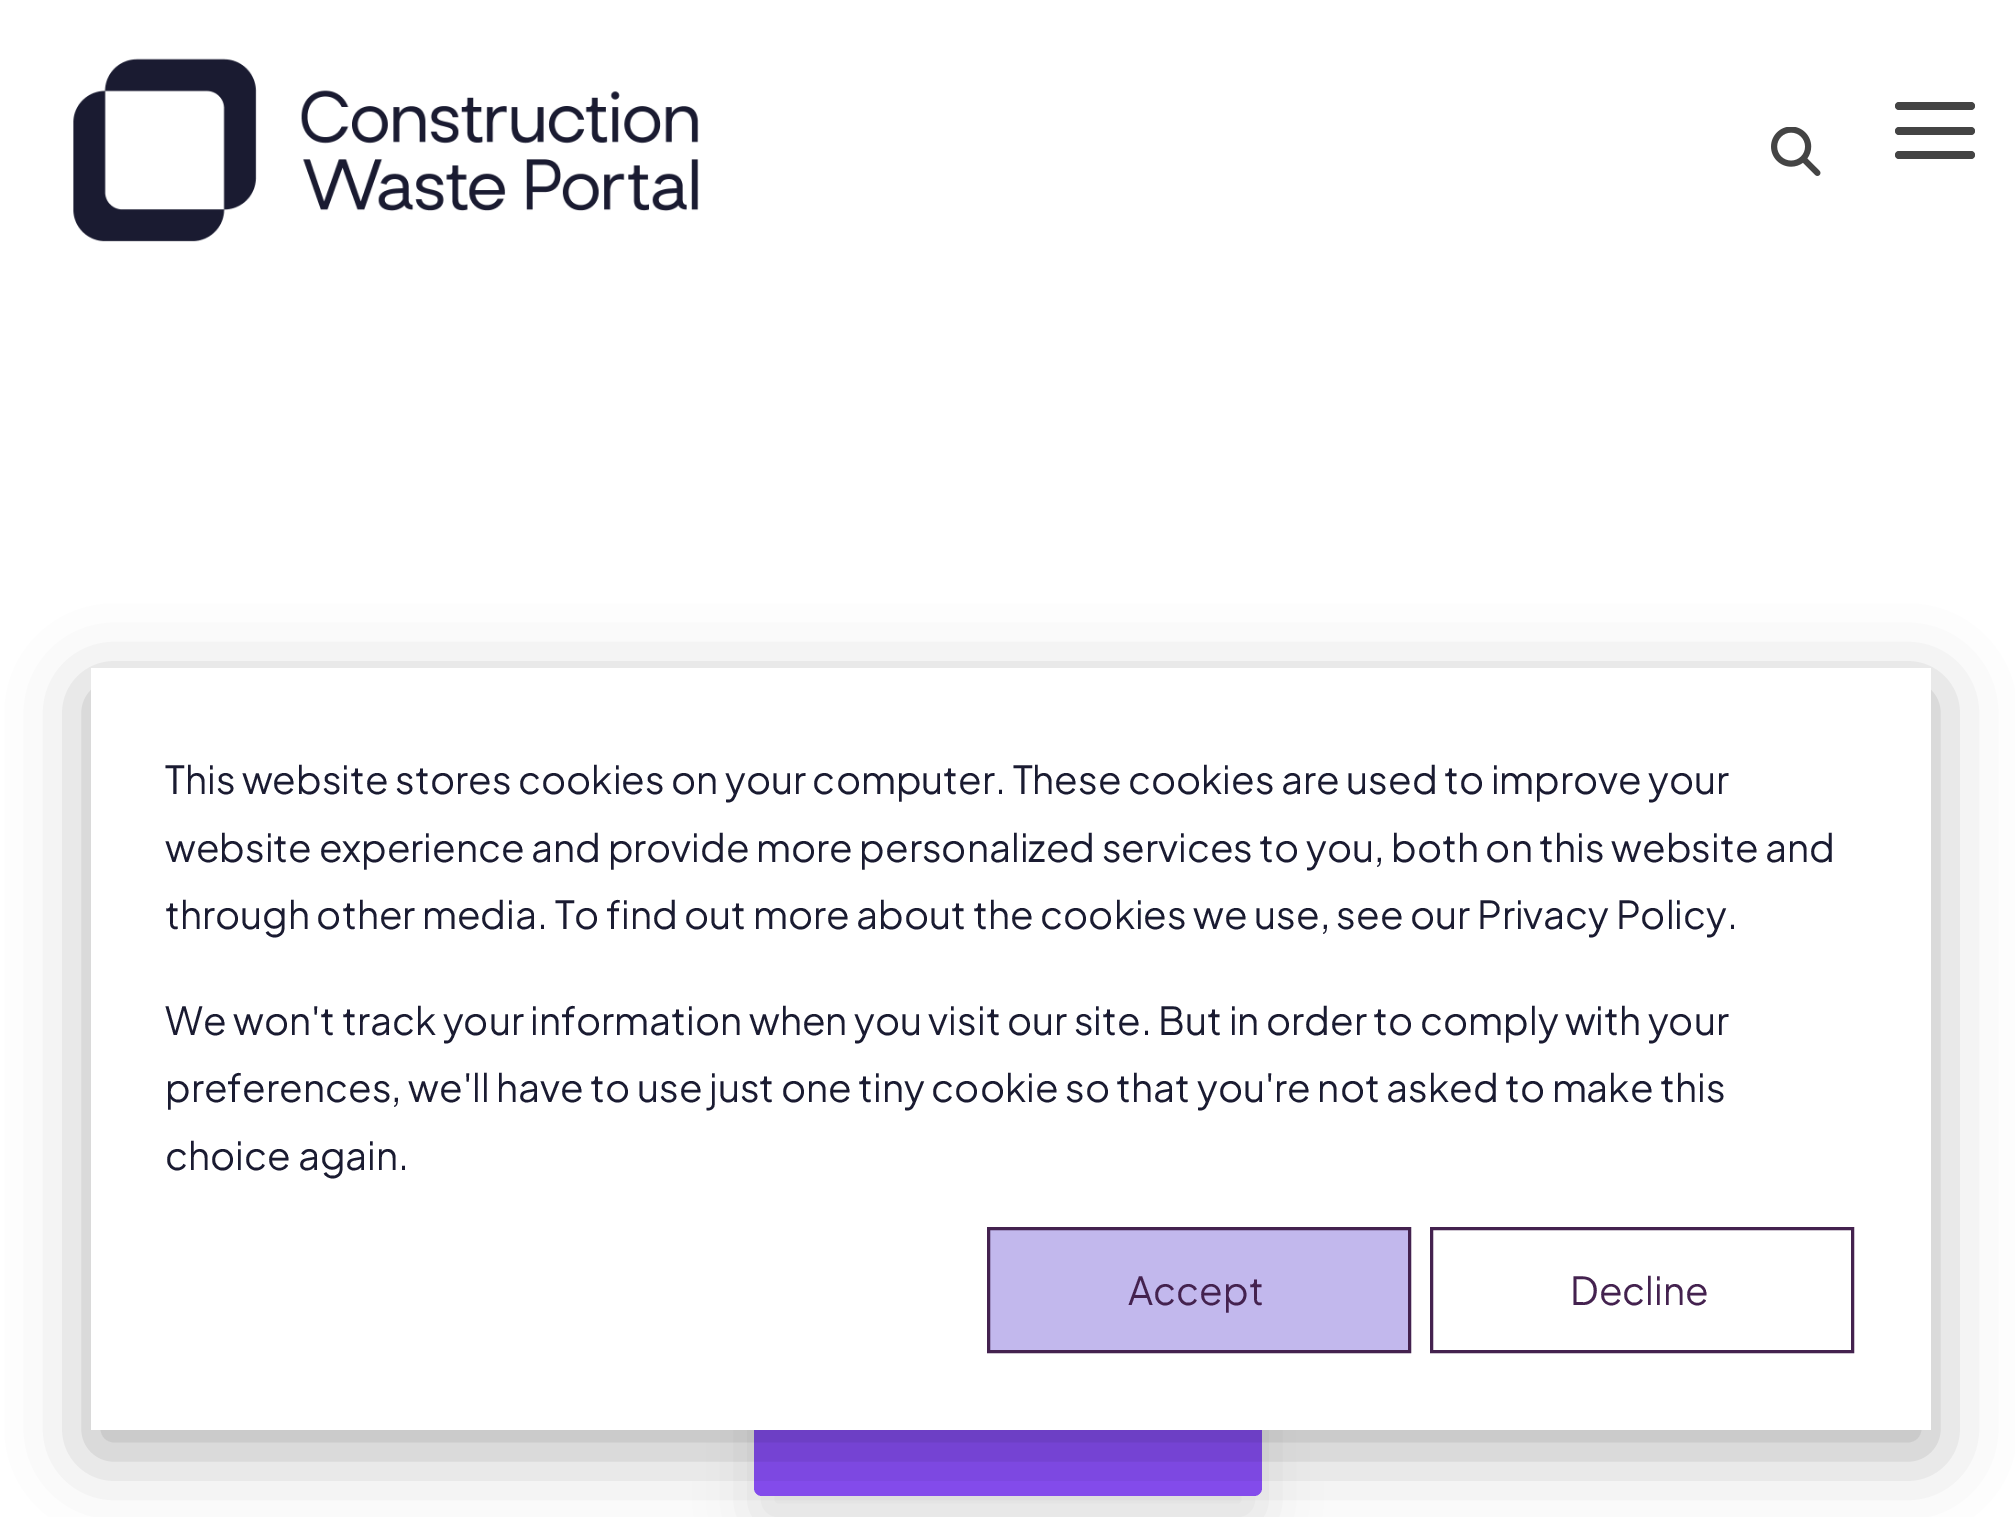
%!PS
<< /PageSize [2015 1517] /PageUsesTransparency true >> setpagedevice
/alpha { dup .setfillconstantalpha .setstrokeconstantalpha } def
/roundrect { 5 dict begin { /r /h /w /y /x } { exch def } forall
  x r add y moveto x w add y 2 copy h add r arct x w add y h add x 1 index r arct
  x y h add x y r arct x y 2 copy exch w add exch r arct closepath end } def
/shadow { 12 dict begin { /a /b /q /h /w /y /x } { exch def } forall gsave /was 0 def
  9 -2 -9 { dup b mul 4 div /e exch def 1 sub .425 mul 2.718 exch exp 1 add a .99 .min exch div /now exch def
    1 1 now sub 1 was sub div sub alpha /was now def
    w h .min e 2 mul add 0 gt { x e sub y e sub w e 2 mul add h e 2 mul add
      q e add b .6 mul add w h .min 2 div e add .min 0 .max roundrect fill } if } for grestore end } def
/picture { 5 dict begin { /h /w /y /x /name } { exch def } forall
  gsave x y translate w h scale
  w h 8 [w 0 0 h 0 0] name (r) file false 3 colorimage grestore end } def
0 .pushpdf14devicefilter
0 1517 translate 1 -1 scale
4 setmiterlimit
1 setgray
0 0 2015 1517 rectfill
(img1.rgb) 73 58 626 184 picture
(img2.rgb) 1771 127 50 49 picture
0.267 setgray
1895 102 80 8 4 roundrect fill
1895 127 80 8 4 roundrect fill
1895 151 80 8 4 roundrect fill
0 setgray
754 1356 508 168 8 27.5 0.1 shadow
0.537 0.31 0.965 setrgbcolor
754 1328 508 168 8 roundrect fill
0 setgray
91 690 1840 762 0 38.5 0.28 shadow
1 setgray
91 668 1840 762 rectfill
/PlusJakartaSans-Regular [38.5 0 0 -38.5 0 0] selectfont
0.102 0.106 0.192 setrgbcolor
165 794 moveto (This website stores cookies on your computer. These cookies are used to improve your) show
165 862 moveto (website experience and provide more personalized services to you, both on this website and) show
165 929 moveto (through other media. To find out more about the cookies we use, see our Privacy Policy.) show
165 1035 moveto (We won't track your information when you visit our site. But in order to comply with your) show
165 1102 moveto (preferences, we'll have to use just one tiny cookie so that you're not asked to make this) show
165 1170 moveto (choice again.) show
0.761 0.722 0.929 setrgbcolor
newpath 988.5 1228.5 moveto 1409.5 1228.5 lineto 1409.5 1351.5 lineto 988.5 1351.5 lineto closepath gsave fill grestore
0.267 0.133 0.31 setrgbcolor
3 setlinewidth
stroke
1128 1305 moveto (Accept) show
1431.5 1228.5 421 123 rectstroke
1570 1305 moveto (Decline) show
.poppdf14devicefilter showpage
